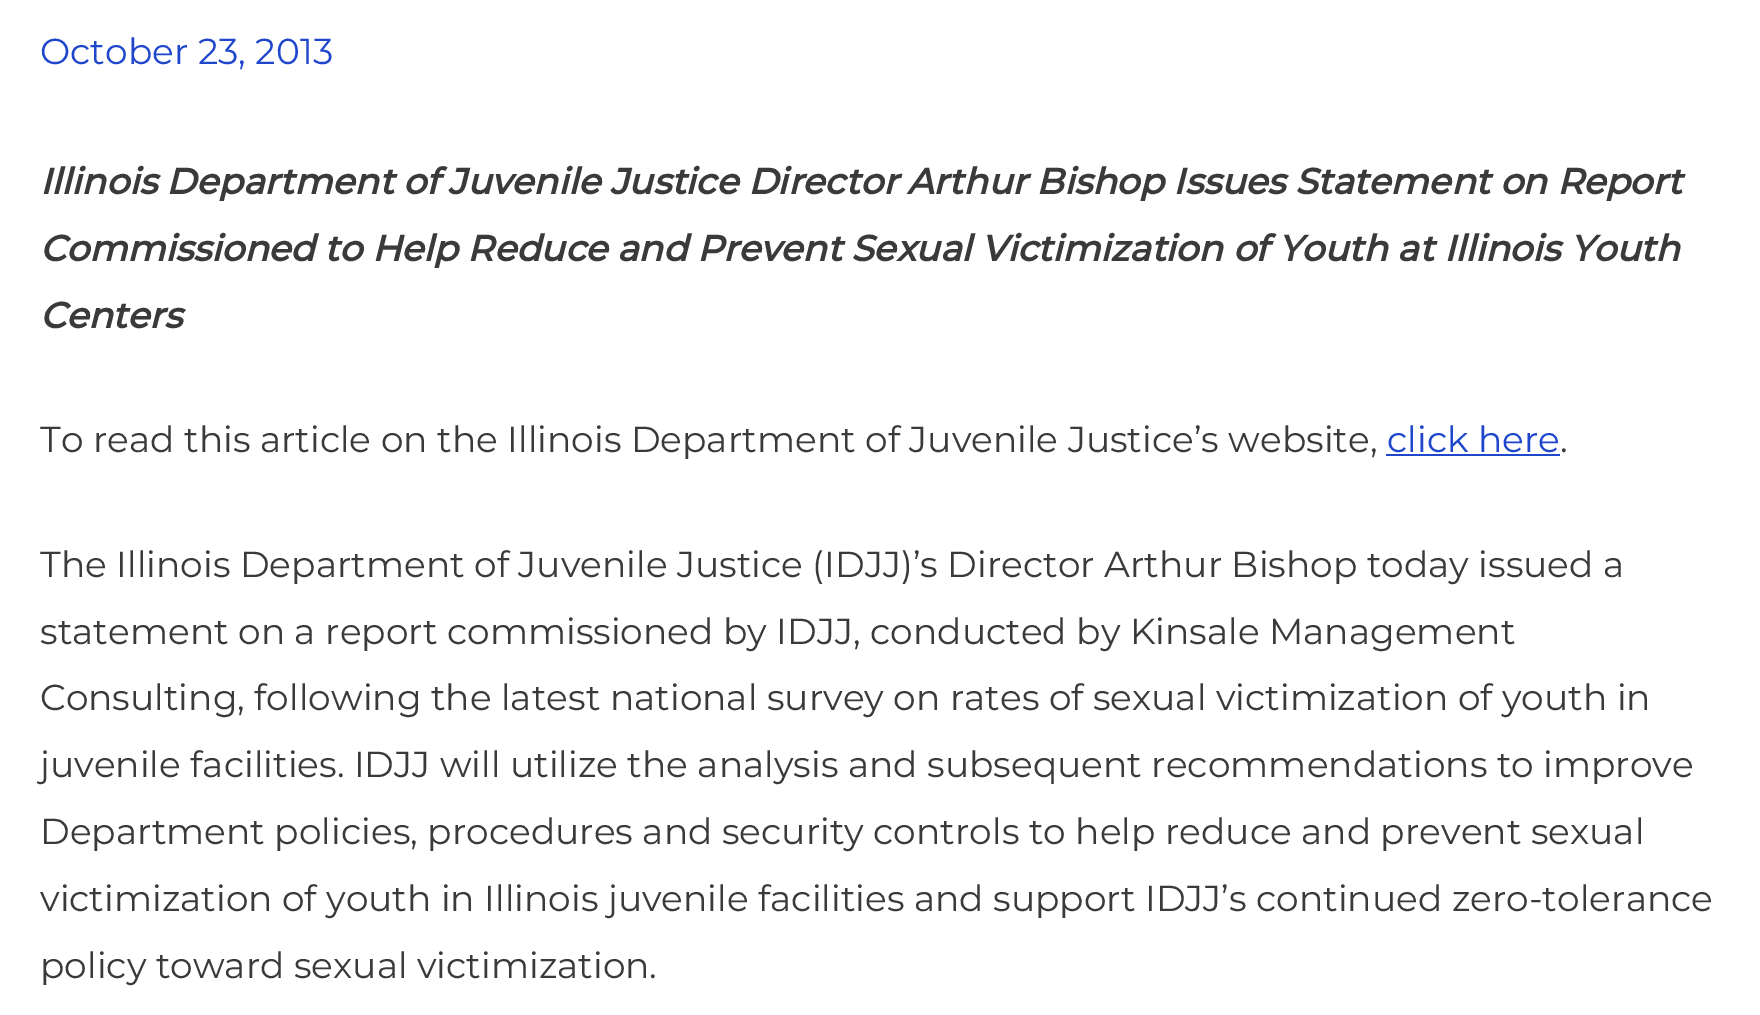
%!PS
<< /PageSize [1760 1015] >> setpagedevice
0 1015 translate 1 -1 scale
4 setmiterlimit
1 setgray
0 0 1760 1015 rectfill
/Montserrat-Regular [36 0 0 -36 0 0] selectfont
0.122 0.278 0.8 setrgbcolor
40 64 moveto (October 23, 2013) show
/Montserrat-BoldItalic [36 0 0 -36 0 0] selectfont
0.227 setgray
40 194 moveto (Illinois Department of Juvenile Justice Director Arthur Bishop Issues Statement on Report) show
40 261 moveto (Commissioned to Help Reduce and Prevent Sexual Victimization of Youth at Illinois Youth) show
40 328 moveto (Centers) show
/Montserrat-Regular [36 0 0 -36 0 0] selectfont
40 452 moveto (To read this article on the Illinois Department of Juvenile Justice’s website,) show
0.122 0.278 0.8 setrgbcolor
1387 452 moveto (click here) show
1386 454 174 2 rectfill
0.227 setgray
1560 452 moveto (.) show
40 577 moveto (The Illinois Department of Juvenile Justice \(IDJJ\)’s Director Arthur Bishop today issued a) show
40 644 moveto (statement on a report commissioned by IDJJ, conducted by Kinsale Management) show
40 710 moveto (Consulting, following the latest national survey on rates of sexual victimization of youth in) show
40 777 moveto (juvenile facilities. IDJJ will utilize the analysis and subsequent recommendations to improve) show
40 844 moveto (Department policies, procedures and security controls to help reduce and prevent sexual) show
40 911 moveto (victimization of youth in Illinois juvenile facilities and support IDJJ’s continued zero-tolerance) show
40 978 moveto (policy toward sexual victimization.) show
showpage
